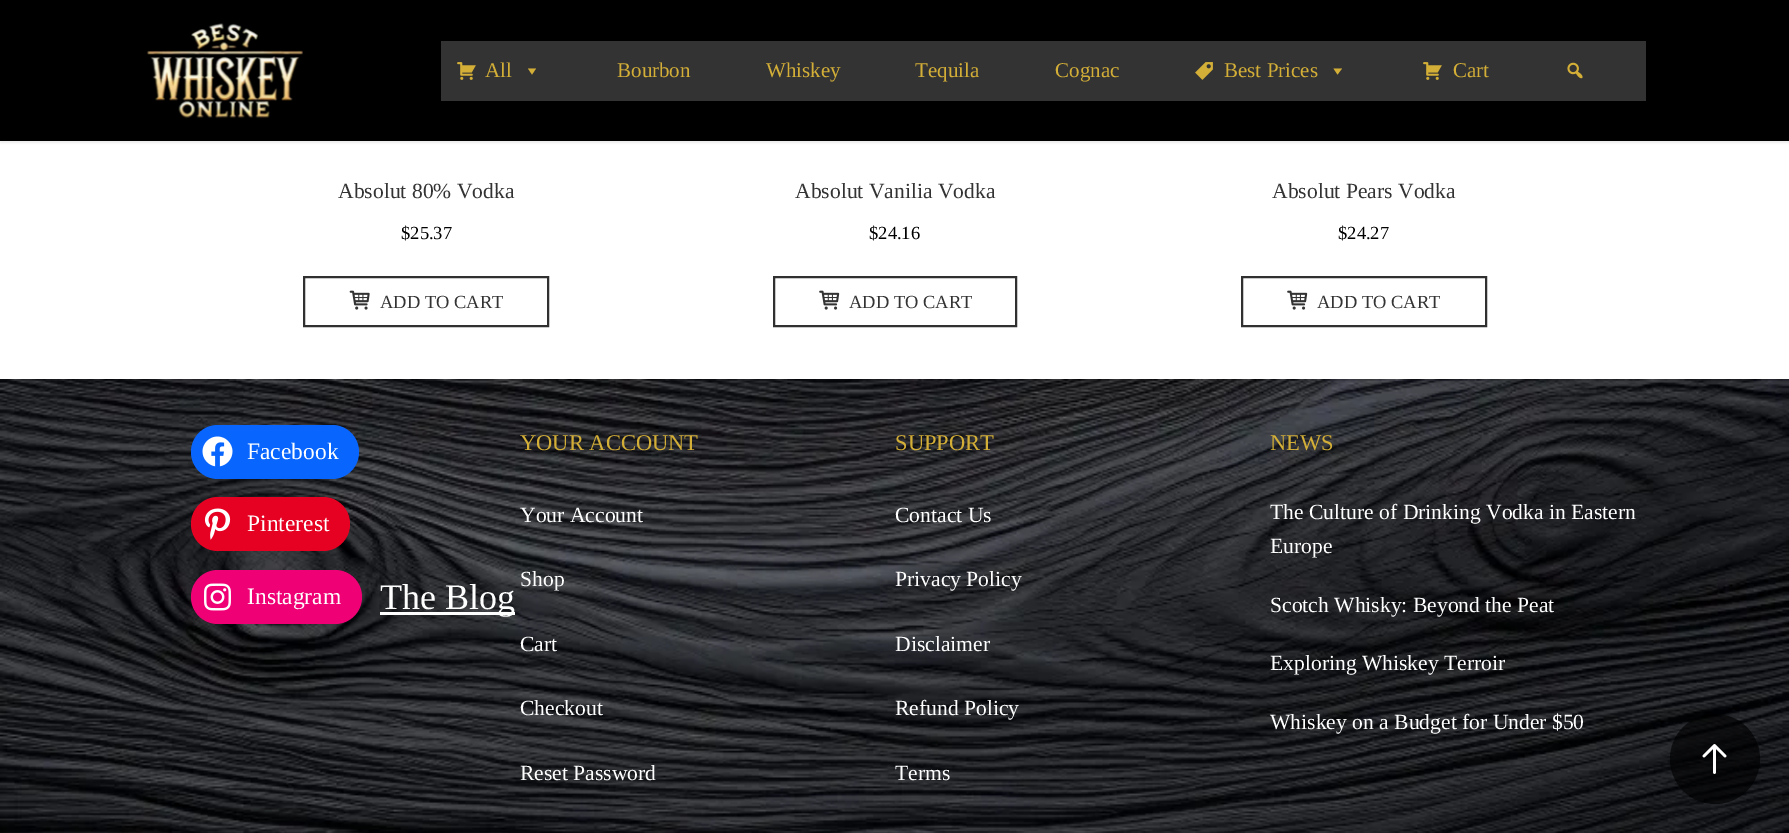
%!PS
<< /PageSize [1789 833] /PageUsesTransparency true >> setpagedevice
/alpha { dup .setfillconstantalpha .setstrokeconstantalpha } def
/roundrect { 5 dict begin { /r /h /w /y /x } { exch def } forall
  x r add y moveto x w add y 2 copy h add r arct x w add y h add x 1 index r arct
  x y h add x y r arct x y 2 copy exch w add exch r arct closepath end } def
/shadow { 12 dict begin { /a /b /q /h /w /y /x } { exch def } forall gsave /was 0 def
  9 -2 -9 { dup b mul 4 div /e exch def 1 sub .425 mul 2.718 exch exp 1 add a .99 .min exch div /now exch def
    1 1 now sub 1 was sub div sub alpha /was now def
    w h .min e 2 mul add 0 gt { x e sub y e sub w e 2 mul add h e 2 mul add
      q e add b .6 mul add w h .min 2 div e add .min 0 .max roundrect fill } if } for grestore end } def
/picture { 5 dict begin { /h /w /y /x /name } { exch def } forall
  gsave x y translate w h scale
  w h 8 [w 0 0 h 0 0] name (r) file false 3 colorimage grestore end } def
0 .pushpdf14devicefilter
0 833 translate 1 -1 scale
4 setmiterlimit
1 setgray
0 0 1789 833 rectfill
0 setgray
0 2 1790 141 0 1 0.07 shadow
0 0 1789 141 rectfill
(img1.rgb) 146 23 157 96 picture
0.2 setgray
441 41 1205 60 rectfill
(img2.rgb) 457 62 19 18 picture
/LiberationSerif-Regular [21 0 0 -21 0 0] selectfont
0.831 0.686 0.216 setrgbcolor
485 77 moveto (All) show
newpath 536 68.5 moveto 532 74.5 lineto 528 68.5 lineto closepath fill
617 77 moveto (Bourbon) show
766 77 moveto (Whiskey) show
915 77 moveto (Tequila) show
1055 77 moveto (Cognac) show
(img3.rgb) 1195 62 18 18 picture
1224 77 moveto (Best Prices) show
newpath 1342 68.5 moveto 1337.5 74.5 lineto 1333.5 68.5 lineto closepath fill
(img2.rgb) 1423 62 19 18 picture
1453 77 moveto (Cart) show
(img4.rgb) 1567 62 16 17 picture
/LiberationSerif-Regular [21.6 0 0 -21.6 0 0] selectfont
0.2 setgray
338 198 moveto (Absolut 80% Vodka) show
/LiberationSerif-Regular [18.5 0 0 -18.5 0 0] selectfont
0 setgray
401 239 moveto ($25.37) show
0.188 setgray
2 setlinewidth
304 277 244 49 rectstroke
(img5.rgb) 349 290 21 20 picture
0.2 setgray
380 308 moveto (ADD TO CART) show
/LiberationSerif-Regular [21.6 0 0 -21.6 0 0] selectfont
795 198 moveto (Absolut Vanilia Vodka) show
/LiberationSerif-Regular [18.5 0 0 -18.5 0 0] selectfont
0 setgray
869 239 moveto ($24.16) show
0.188 setgray
774 277 242 49 rectstroke
(img6.rgb) 819 290 21 20 picture
0.2 setgray
849 308 moveto (ADD TO CART) show
/LiberationSerif-Regular [21.6 0 0 -21.6 0 0] selectfont
1272 198 moveto (Absolut Pears Vodka) show
/LiberationSerif-Regular [18.5 0 0 -18.5 0 0] selectfont
0 setgray
1338 239 moveto ($24.27) show
0.188 setgray
1242 277 244 49 rectstroke
(img6.rgb) 1287 290 21 20 picture
0.2 setgray
1317 308 moveto (ADD TO CART) show
(img7.rgb) 0 379 1789 454 picture
0.031 0.4 1 setrgbcolor
191 425 168 54 27 roundrect fill
(img8.rgb) 202 436 31 31 picture
/LiberationSerif-Regular [23.5 0 0 -23.5 0 0] selectfont
1 setgray
247 459 moveto (Facebook) show
0.902 0.004 0.133 setrgbcolor
191 497 159 54 27 roundrect fill
(img9.rgb) 204 508 27 32 picture
1 setgray
247 531 moveto (Pinterest) show
0.941 0 0.459 setrgbcolor
191 570 171 54 27 roundrect fill
(img10.rgb) 204 583 27 28 picture
1 setgray
247 604 moveto (Instagram) show
380 612 135 3 rectfill
/LiberationSerif-Regular [36 0 0 -36 0 0] selectfont
380 609 moveto (The Blog) show
/LiberationSerif-Regular [22.5 0 0 -22.5 0 0] selectfont
0.831 0.686 0.216 setrgbcolor
520 450 moveto (YOUR ACCOUNT) show
/LiberationSerif-Regular [21.6 0 0 -21.6 0 0] selectfont
1 setgray
520 522 moveto (Your Account) show
520 586 moveto (Shop) show
520 651 moveto (Cart) show
520 715 moveto (Checkout) show
520 780 moveto (Reset Password) show
/LiberationSerif-Regular [22.5 0 0 -22.5 0 0] selectfont
0.831 0.686 0.216 setrgbcolor
895 450 moveto (SUPPORT) show
/LiberationSerif-Regular [21.6 0 0 -21.6 0 0] selectfont
1 setgray
895 522 moveto (Contact Us) show
895 586 moveto (Privacy Policy) show
895 651 moveto (Disclaimer) show
895 715 moveto (Refund Policy) show
895 780 moveto (Terms) show
/LiberationSerif-Regular [22.5 0 0 -22.5 0 0] selectfont
0.831 0.686 0.216 setrgbcolor
1270 450 moveto (NEWS) show
/LiberationSerif-Regular [21.6 0 0 -21.6 0 0] selectfont
1 setgray
1270 519 moveto (The Culture of Drinking Vodka in Eastern) show
1270 553 moveto (Europe) show
1270 612 moveto (Scotch Whisky: Beyond the Peat) show
1270 670 moveto (Exploring Whiskey Terroir) show
1270 729 moveto (Whiskey on a Budget for Under $50) show
0.65 alpha
0 setgray
newpath 1715 759 45 0 360 arc closepath fill
1 alpha
(img11.rgb) 1702 744 25 30 picture
.poppdf14devicefilter showpage
